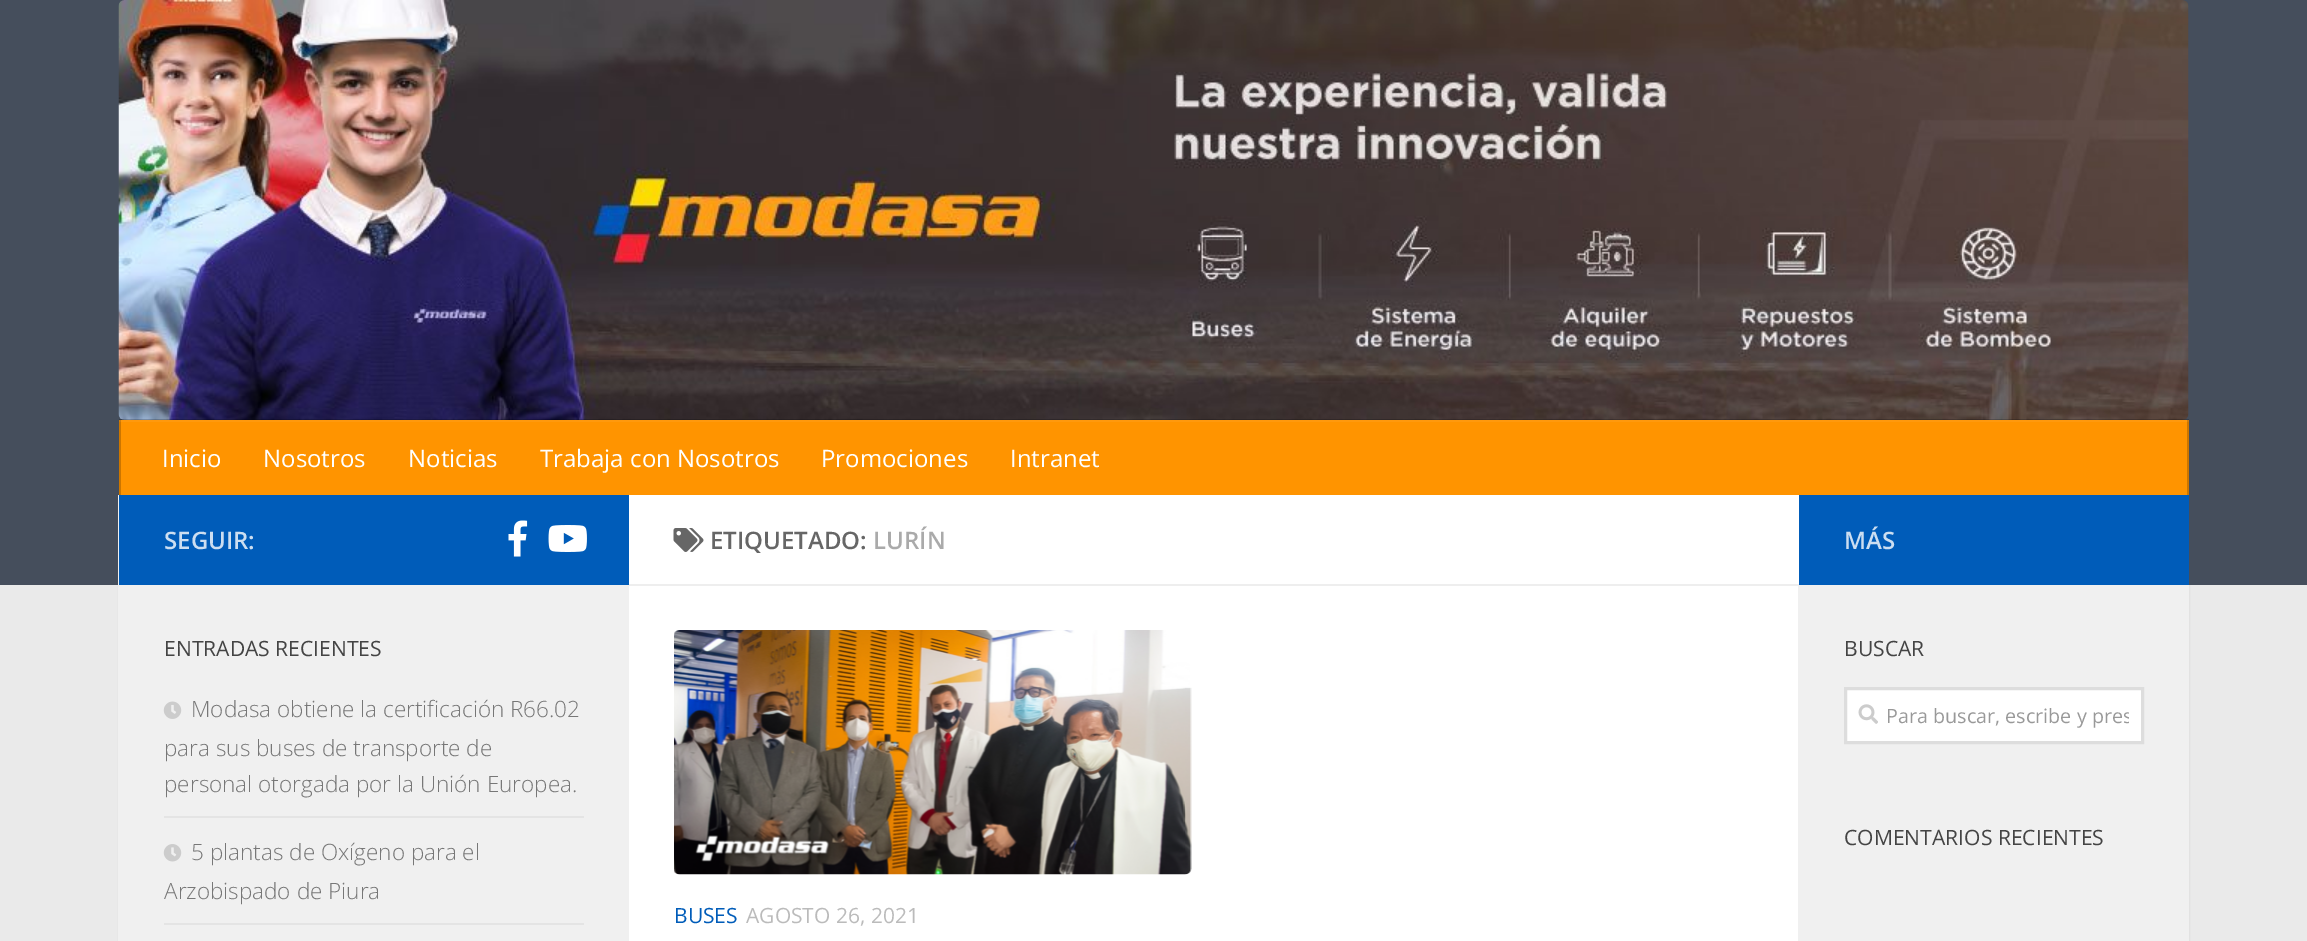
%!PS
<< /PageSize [2307 941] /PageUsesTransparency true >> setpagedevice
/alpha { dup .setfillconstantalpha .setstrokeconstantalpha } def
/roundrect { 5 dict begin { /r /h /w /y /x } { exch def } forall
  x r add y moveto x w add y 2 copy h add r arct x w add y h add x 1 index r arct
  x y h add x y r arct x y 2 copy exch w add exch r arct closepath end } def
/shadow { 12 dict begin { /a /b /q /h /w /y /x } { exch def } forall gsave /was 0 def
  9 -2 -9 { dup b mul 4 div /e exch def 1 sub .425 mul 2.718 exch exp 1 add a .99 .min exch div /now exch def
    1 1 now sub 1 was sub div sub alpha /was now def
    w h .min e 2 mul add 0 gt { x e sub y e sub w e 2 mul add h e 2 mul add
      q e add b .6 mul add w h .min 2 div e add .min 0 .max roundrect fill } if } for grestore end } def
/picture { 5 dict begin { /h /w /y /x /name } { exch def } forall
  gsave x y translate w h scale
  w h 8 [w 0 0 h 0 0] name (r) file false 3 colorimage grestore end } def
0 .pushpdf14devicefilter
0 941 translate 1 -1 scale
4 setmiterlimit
0.918 setgray
0 0 2307 941 rectfill
0 setgray
119 497 2070 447 0 1 0.1 shadow
0.271 0.306 0.361 setrgbcolor
0 0 2307 585 rectfill
(img1.rgb) 118 0 2071 420 picture
0.2 alpha
0 setgray
newpath 119 419 moveto 119 420 lineto 2188 420 lineto 2188 494 lineto 2189 494 lineto 2189 419 lineto closepath fill
1 alpha
1 0.58 0 setrgbcolor
121 420 2066 75 rectfill
0.8 0.463 0 setrgbcolor
2187 420 2 75 rectfill
119 420 2 75 rectfill
0.05 alpha
1 setgray
119 420 2070 2 rectfill
/OpenSans-Regular [24 0 0 -24 0 0] selectfont
1 alpha
162 467 moveto (Inicio) show
263 467 moveto (Nosotros) show
408 467 moveto (Noticias) show
540 467 moveto (Trabaja con Nosotros) show
821 467 moveto (Promociones) show
1010 467 moveto (Intranet) show
629 586 1169 355 rectfill
0.941 setgray
1798 585 391 356 rectfill
118 495 511 446 rectfill
0 0.361 0.725 setrgbcolor
119 495 510 90 rectfill
/OpenSans-SemiBold [24 0 0 -24 0 0] selectfont
0.8 0.871 0.945 setrgbcolor
164 549 moveto (SEGUIR:) show
(img2.rgb) 508 520 20 37 picture
(img3.rgb) 548 525 39 27 picture
/OpenSans-Regular [21.1 0 0 -21.1 0 0] selectfont
0.267 setgray
164 656 moveto (ENTRADAS RECIENTES) show
0.894 setgray
164 816 420 2 rectfill
(img4.rgb) 163 701 19 18 picture
/OpenSans-Light [22.5 0 0 -22.5 0 0] selectfont
0.467 setgray
191 717 moveto (Modasa obtiene la certificación R66.02) show
164 756 moveto (para sus buses de transporte de) show
164 792 moveto (personal otorgada por la Unión Europea.) show
0.894 setgray
164 923 420 2 rectfill
(img5.rgb) 163 844 19 18 picture
0.467 setgray
191 860 moveto (5 plantas de Oxígeno para el) show
164 899 moveto (Arzobispado de Piura) show
1 setgray
629 495 1170 89 rectfill
0.933 setgray
629 584 1170 2 rectfill
(img6.rgb) 673 528 31 24 picture
/OpenSans-SemiBold [24 0 0 -24 0 0] selectfont
0.4 setgray
710 549 moveto (ETIQUETADO:) show
0.667 setgray
873 549 moveto (LURÍN) show
(img7.rgb) 674 630 518 245 picture
/OpenSans-Regular [21 0 0 -21 0 0] selectfont
0 0.361 0.725 setrgbcolor
674 923 moveto (BUSES) show
0.733 setgray
746 923 moveto (AGOSTO 26, 2021) show
0 0.361 0.725 setrgbcolor
1799 495 390 90 rectfill
/OpenSans-SemiBold [24 0 0 -24 0 0] selectfont
0.8 0.871 0.945 setrgbcolor
1844 549 moveto (MÁS) show
/OpenSans-Regular [21.1 0 0 -21.1 0 0] selectfont
0.267 setgray
1844 656 moveto (BUSCAR) show
1 setgray
newpath 1845.5 688.5 moveto 2142.5 688.5 lineto 2142.5 742.5 lineto 1845.5 742.5 lineto closepath gsave fill grestore
0.867 setgray
3 setlinewidth
stroke
(img8.rgb) 1858 704 20 20 picture
gsave
1886 701 243 30 rectclip
/OpenSans-Regular [19.75 0 0 -19.75 0 0] selectfont
0.6 setgray
1886 723 moveto (Para buscar, escribe y pres) show
grestore
0.267 setgray
1844 845 moveto (COMENTARIOS RECIENTES) show
.poppdf14devicefilter showpage
